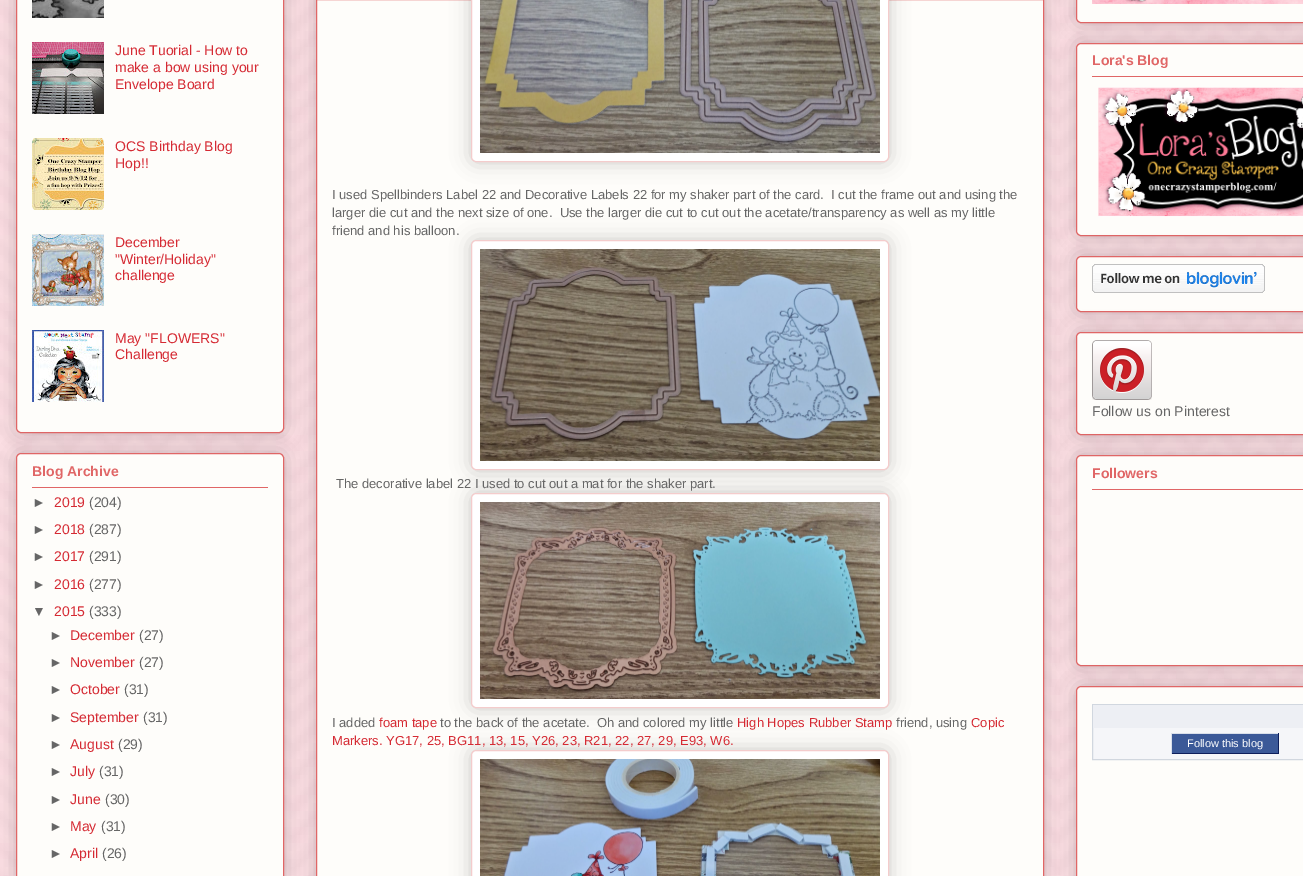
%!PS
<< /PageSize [1303 876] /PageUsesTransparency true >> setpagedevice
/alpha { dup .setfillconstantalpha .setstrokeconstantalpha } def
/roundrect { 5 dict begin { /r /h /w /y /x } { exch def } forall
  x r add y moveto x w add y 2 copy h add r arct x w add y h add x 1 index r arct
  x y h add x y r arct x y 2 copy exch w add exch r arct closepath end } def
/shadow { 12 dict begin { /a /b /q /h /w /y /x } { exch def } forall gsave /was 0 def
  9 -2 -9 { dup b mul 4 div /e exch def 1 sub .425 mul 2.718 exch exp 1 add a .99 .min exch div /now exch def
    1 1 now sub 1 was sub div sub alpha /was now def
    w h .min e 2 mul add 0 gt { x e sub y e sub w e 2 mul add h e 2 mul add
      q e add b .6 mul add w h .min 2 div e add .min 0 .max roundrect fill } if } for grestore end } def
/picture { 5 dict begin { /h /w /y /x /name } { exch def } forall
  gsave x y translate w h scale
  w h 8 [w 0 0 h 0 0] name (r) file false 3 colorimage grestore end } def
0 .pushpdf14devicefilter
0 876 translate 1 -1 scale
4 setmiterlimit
1 setgray
0 0 1303 876 rectfill
(img1.rgb) 0 0 1303 876 picture
0 setgray
16 -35 268 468 5 10 0.2 shadow
0.996 0.992 0.98 setrgbcolor
16.5 -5.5 267 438 4.5 roundrect gsave fill grestore
0.878 0.4 0.4 setrgbcolor
stroke
(img2.rgb) 32 0 72 18 picture
(img3.rgb) 32 42 72 72 picture
/LiberationSans-Regular [14 0 0 -14 0 0] selectfont
0.835 0.165 0.2 setrgbcolor
115 55 moveto (June Tuorial - How to) show
115 72 moveto (make a bow using your) show
115 89 moveto (Envelope Board) show
(img4.rgb) 32 138 72 72 picture
115 151 moveto (OCS Birthday Blog) show
115 168 moveto (Hop!!) show
(img5.rgb) 32 234 72 72 picture
115 247 moveto (December) show
115 264 moveto ("Winter/Holiday") show
115 280 moveto (challenge) show
(img6.rgb) 32 330 72 72 picture
115 343 moveto (May "FLOWERS") show
115 359 moveto (Challenge) show
0 setgray
16 453 268 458 5 10 0.2 shadow
0.996 0.992 0.98 setrgbcolor
16.5 453.5 267 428 4.5 roundrect gsave fill grestore
0.878 0.4 0.4 setrgbcolor
stroke
/LiberationSans-Bold [14 0 0 -14 0 0] selectfont
32 476 moveto (Blog Archive) show
32 487 236 1 rectfill
/LiberationSans-Regular [14 0 0 -14 0 0] selectfont
0.4 setgray
32 507 moveto (►) show
0.835 0.165 0.2 setrgbcolor
54 507 moveto (2019) show
0.4 setgray
89 507 moveto (\(204\)) show
32 534 moveto (►) show
0.835 0.165 0.2 setrgbcolor
54 534 moveto (2018) show
0.4 setgray
89 534 moveto (\(287\)) show
32 561 moveto (►) show
0.835 0.165 0.2 setrgbcolor
54 561 moveto (2017) show
0.4 setgray
89 561 moveto (\(291\)) show
32 589 moveto (►) show
0.835 0.165 0.2 setrgbcolor
54 589 moveto (2016) show
0.4 setgray
89 589 moveto (\(277\)) show
32 616 moveto (▼) show
0.835 0.165 0.2 setrgbcolor
54 616 moveto (2015) show
0.4 setgray
89 616 moveto (\(333\)) show
49 640 moveto (►) show
0.835 0.165 0.2 setrgbcolor
70 640 moveto (December) show
0.4 setgray
139 640 moveto (\(27\)) show
49 667 moveto (►) show
0.835 0.165 0.2 setrgbcolor
70 667 moveto (November) show
0.4 setgray
139 667 moveto (\(27\)) show
49 694 moveto (►) show
0.835 0.165 0.2 setrgbcolor
70 694 moveto (October) show
0.4 setgray
124 694 moveto (\(31\)) show
49 722 moveto (►) show
0.835 0.165 0.2 setrgbcolor
70 722 moveto (September) show
0.4 setgray
143 722 moveto (\(31\)) show
49 749 moveto (►) show
0.835 0.165 0.2 setrgbcolor
70 749 moveto (August) show
0.4 setgray
118 749 moveto (\(29\)) show
49 776 moveto (►) show
0.835 0.165 0.2 setrgbcolor
70 776 moveto (July) show
0.4 setgray
99 776 moveto (\(31\)) show
49 804 moveto (►) show
0.835 0.165 0.2 setrgbcolor
70 804 moveto (June) show
0.4 setgray
105 804 moveto (\(30\)) show
49 831 moveto (►) show
0.835 0.165 0.2 setrgbcolor
70 831 moveto (May) show
0.4 setgray
101 831 moveto (\(31\)) show
49 858 moveto (►) show
0.835 0.165 0.2 setrgbcolor
70 858 moveto (April) show
0.4 setgray
102 858 moveto (\(26\)) show
0 setgray
316 -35 728 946 5 10 0.2 shadow
0.996 0.992 0.98 setrgbcolor
newpath 316.5 -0.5 moveto 1043.5 -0.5 lineto 1043.5 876.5 lineto 316.5 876.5 lineto closepath gsave fill grestore
0.878 0.4 0.4 setrgbcolor
stroke
0 setgray
471 -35 418 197 5 10 0.2 shadow
1 setgray
471.5 -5.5 417 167 4.5 roundrect gsave fill grestore
0.957 0.8 0.8 setrgbcolor
stroke
(img7.rgb) 480 0 400 153 picture
/LiberationSans-Regular [13 0 0 -13 0 0] selectfont
0.4 setgray
332 199 moveto (I used Spellbinders Label 22 and Decorative Labels 22 for my shaker part of the card.  I cut the frame out and using the) show
332 217 moveto (larger die cut and the next size of one.  Use the larger die cut to cut out the acetate/transparency as well as my little) show
332 235 moveto (friend and his balloon.) show
0 setgray
471 240 418 230 5 10 0.2 shadow
1 setgray
471.5 240.5 417 229 4.5 roundrect gsave fill grestore
0.957 0.8 0.8 setrgbcolor
stroke
(img8.rgb) 480 249 400 212 picture
0 setgray
471 493 418 215 5 10 0.2 shadow
1 setgray
471.5 493.5 417 214 4.5 roundrect gsave fill grestore
0.957 0.8 0.8 setrgbcolor
stroke
(img9.rgb) 480 502 400 197 picture
0.4 setgray
336 488 moveto (The decorative label 22 I used to cut out a mat for the shaker part.) show
332 727 moveto (I added) show
0.835 0.165 0.2 setrgbcolor
379 727 moveto (foam tape) show
0.4 setgray
440 727 moveto (to the back of the acetate.  Oh and colored my little) show
0.835 0.165 0.2 setrgbcolor
737 727 moveto (High Hopes Rubber Stamp) show
0.4 setgray
896 727 moveto (friend, using) show
0.835 0.165 0.2 setrgbcolor
971 727 moveto (Copic) show
0 setgray
471 750 418 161 5 10 0.2 shadow
1 setgray
471.5 750.5 417 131 4.5 roundrect gsave fill grestore
0.957 0.8 0.8 setrgbcolor
stroke
(img10.rgb) 480 759 400 117 picture
0.835 0.165 0.2 setrgbcolor
332 745 moveto (Markers. YG17, 25, BG11, 13, 15, Y26, 23, R21, 22, 27, 29, E93, W6.) show
0 setgray
1076 -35 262 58 5 10 0.2 shadow
0.996 0.992 0.98 setrgbcolor
1076.5 -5.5 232 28 4.5 roundrect gsave fill grestore
0.878 0.4 0.4 setrgbcolor
stroke
(img11.rgb) 1092 0 211 4 picture
0 setgray
1076 43 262 193 5 10 0.2 shadow
0.996 0.992 0.98 setrgbcolor
1076.5 43.5 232 192 4.5 roundrect gsave fill grestore
0.878 0.4 0.4 setrgbcolor
stroke
/LiberationSans-Bold [14 0 0 -14 0 0] selectfont
1092 65 moveto (Lora's Blog) show
1092 76 211 1 rectfill
(img12.rgb) 1098 87 205 130 picture
0 setgray
1076 256 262 56 5 10 0.2 shadow
0.996 0.992 0.98 setrgbcolor
1076.5 256.5 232 55 4.5 roundrect gsave fill grestore
0.878 0.4 0.4 setrgbcolor
stroke
(img13.rgb) 1092 264 173 29 picture
0 setgray
1076 332 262 103 5 10 0.2 shadow
0.996 0.992 0.98 setrgbcolor
1076.5 332.5 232 102 4.5 roundrect gsave fill grestore
0.878 0.4 0.4 setrgbcolor
stroke
(img14.rgb) 1092 340 60 60 picture
/LiberationSans-Regular [14 0 0 -14 0 0] selectfont
0.4 setgray
1092 416 moveto (Follow us on Pinterest) show
0 setgray
1076 455 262 211 5 10 0.2 shadow
0.996 0.992 0.98 setrgbcolor
1076.5 455.5 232 210 4.5 roundrect gsave fill grestore
0.878 0.4 0.4 setrgbcolor
stroke
/LiberationSans-Bold [14 0 0 -14 0 0] selectfont
1092 478 moveto (Followers) show
1092 489 211 1 rectfill
0 setgray
1076 686 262 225 5 10 0.2 shadow
0.996 0.992 0.98 setrgbcolor
1076.5 686.5 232 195 4.5 roundrect gsave fill grestore
0.878 0.4 0.4 setrgbcolor
stroke
0.961 0.965 0.976 setrgbcolor
1093 728 210 31 rectfill
0.82 0.843 0.875 setrgbcolor
1092.5 704.5 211 55 rectstroke
0.929 0.937 0.957 setrgbcolor
1093 705 210 23 rectfill
0.231 0.349 0.596 setrgbcolor
1172 734 106 19 rectfill
0.851 0.875 0.918 setrgbcolor
1171 733 108 1 rectfill
0.055 0.122 0.357 setrgbcolor
1278 733 1 21 rectfill
1171 753 108 1 rectfill
0.851 0.875 0.918 setrgbcolor
1171 733 1 21 rectfill
/LiberationSans-Regular [11 0 0 -11 0 0] selectfont
1 setgray
1187 747 moveto (Follow this blog) show
.poppdf14devicefilter showpage
